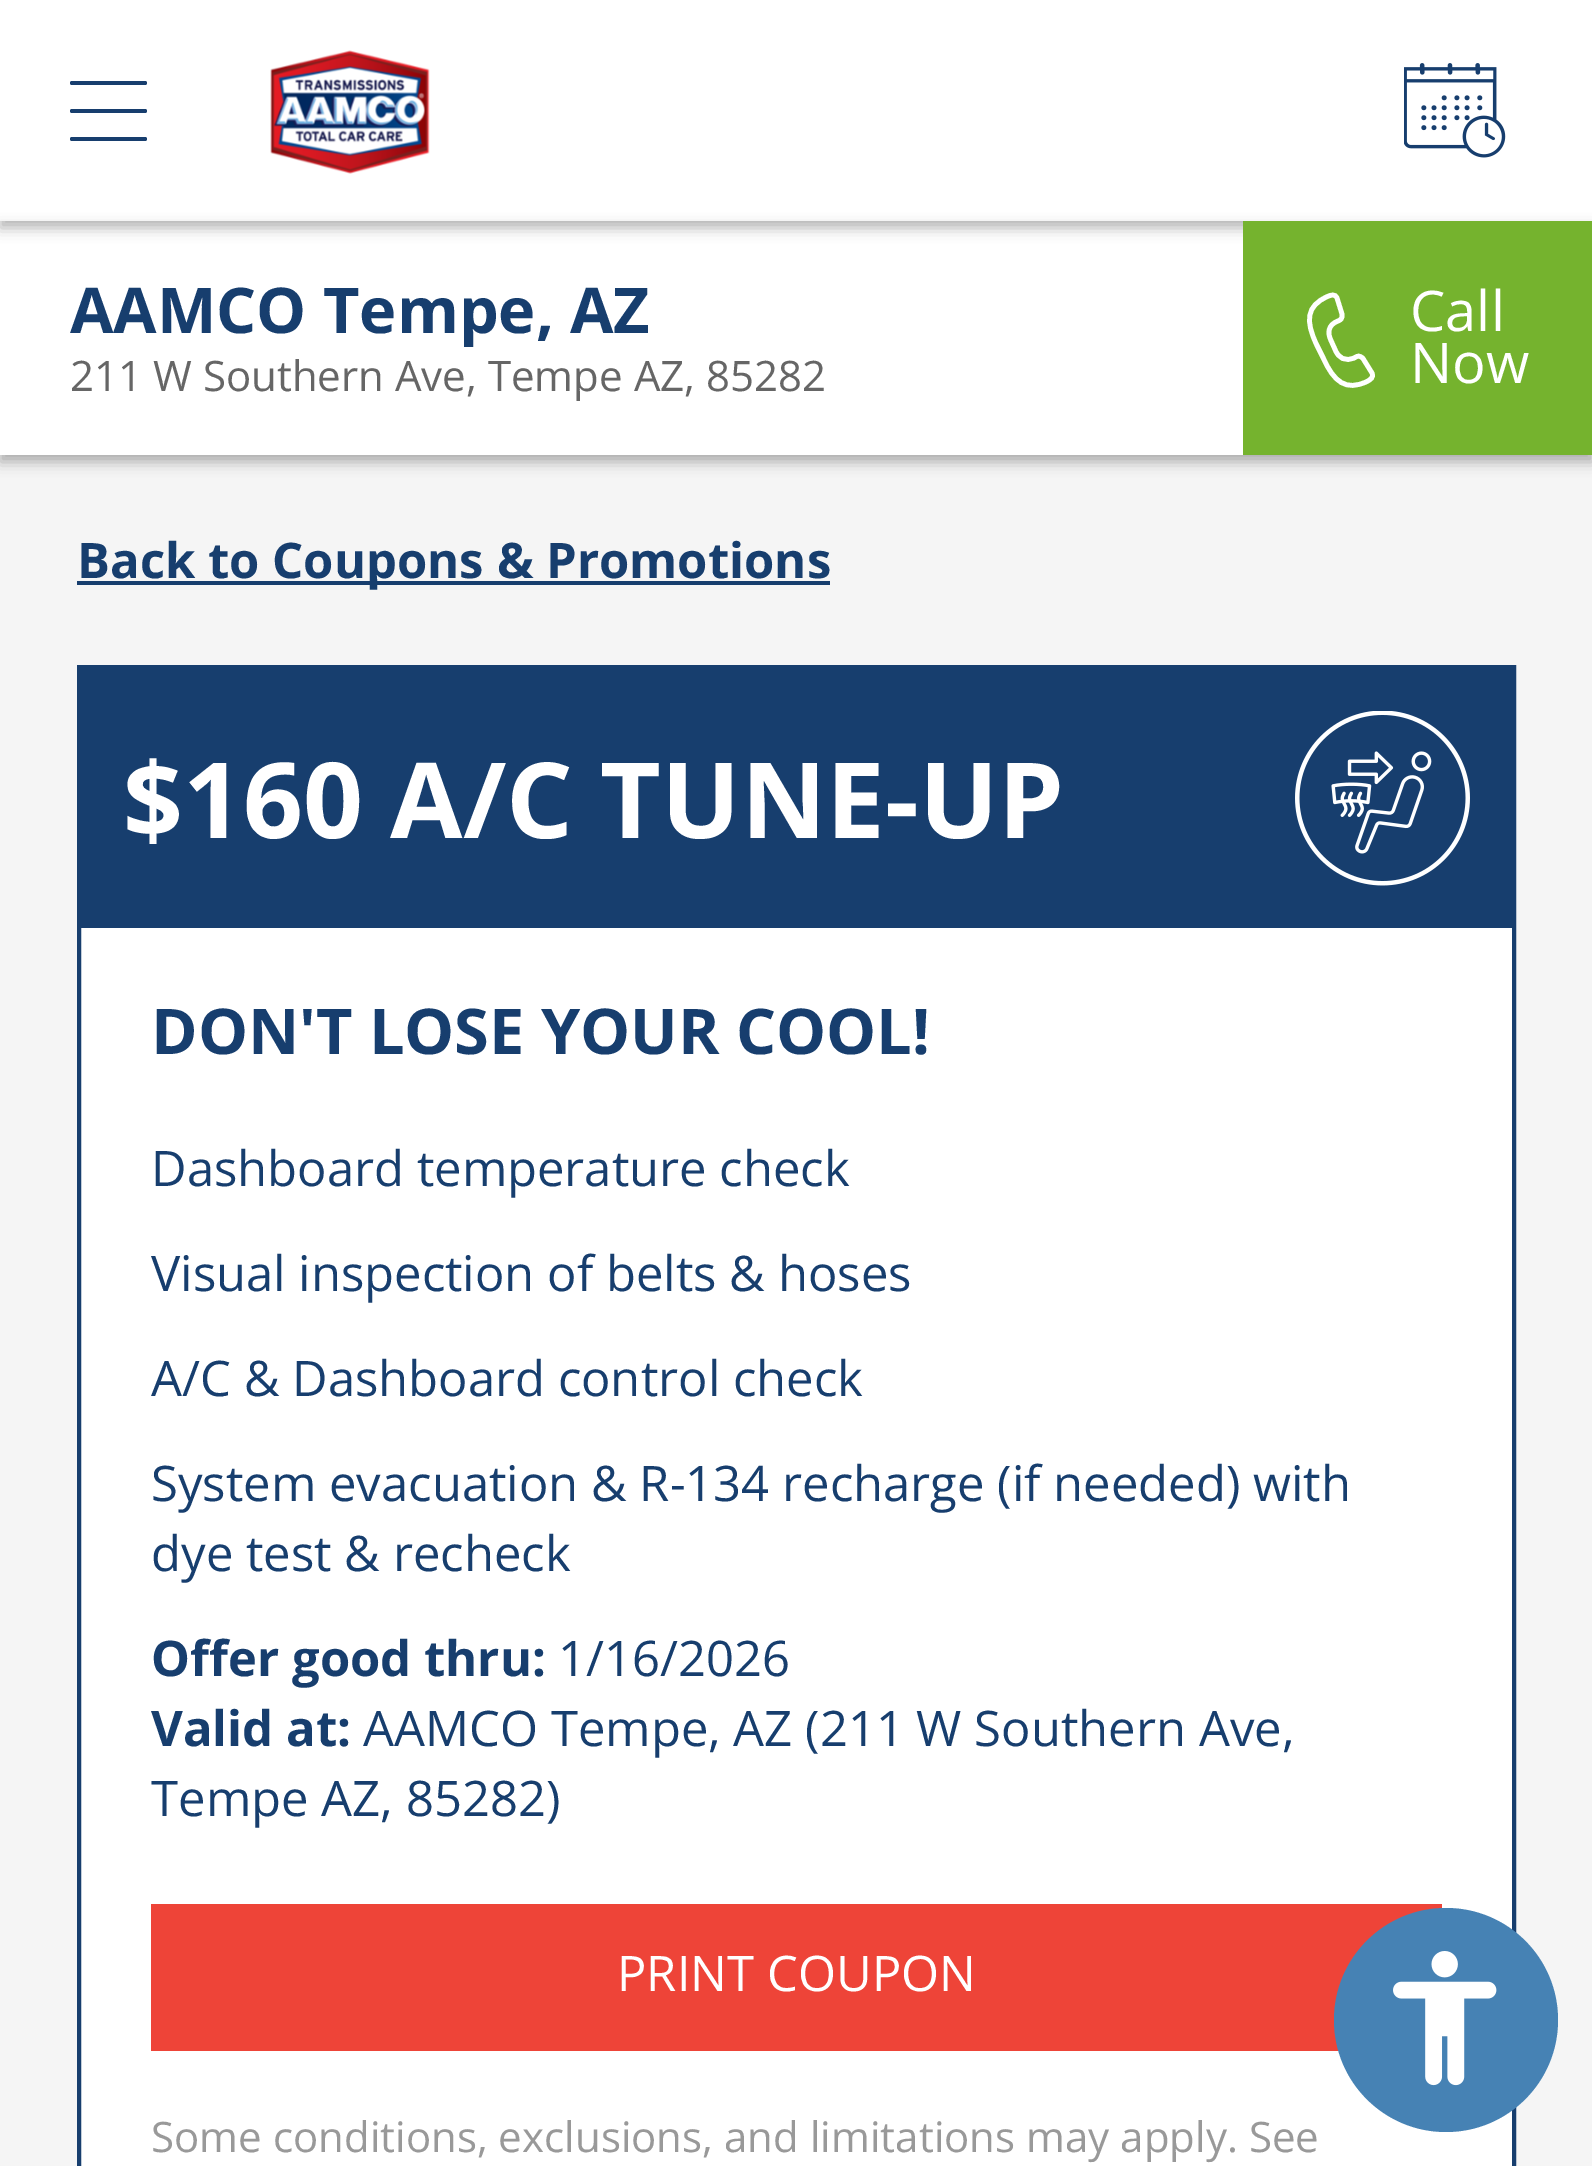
%!PS
<< /PageSize [1592 2166] /PageUsesTransparency true >> setpagedevice
/alpha { dup .setfillconstantalpha .setstrokeconstantalpha } def
/roundrect { 5 dict begin { /r /h /w /y /x } { exch def } forall
  x r add y moveto x w add y 2 copy h add r arct x w add y h add x 1 index r arct
  x y h add x y r arct x y 2 copy exch w add exch r arct closepath end } def
/shadow { 12 dict begin { /a /b /q /h /w /y /x } { exch def } forall gsave /was 0 def
  9 -2 -9 { dup b mul 4 div /e exch def 1 sub .425 mul 2.718 exch exp 1 add a .99 .min exch div /now exch def
    1 1 now sub 1 was sub div sub alpha /was now def
    w h .min e 2 mul add 0 gt { x e sub y e sub w e 2 mul add h e 2 mul add
      q e add b .6 mul add w h .min 2 div e add .min 0 .max roundrect fill } if } for grestore end } def
/picture { 5 dict begin { /h /w /y /x /name } { exch def } forall
  gsave x y translate w h scale
  w h 8 [w 0 0 h 0 0] name (r) file false 3 colorimage grestore end } def
0 .pushpdf14devicefilter
0 2166 translate 1 -1 scale
4 setmiterlimit
0.961 setgray
0 0 1592 2166 rectfill
1 setgray
0 0 1592 455 rectfill
gsave
newpath 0 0 moveto 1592 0 lineto 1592 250 lineto 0 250 lineto closepath 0 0 moveto 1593 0 lineto 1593 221 lineto 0 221 lineto closepath eoclip newpath
0 setgray
0 7 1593 221 0 7 0.3 shadow
grestore
0.09 0.243 0.431 setrgbcolor
70 81 77 4 2 roundrect fill
70 109 77 4 2 roundrect fill
70 137 77 4 2 roundrect fill
(img1.rgb) 270 50 160 124 picture
(img2.rgb) 1404 63 102 95 picture
gsave
newpath 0 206 moveto 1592 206 lineto 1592 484 lineto 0 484 lineto closepath 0 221 moveto 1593 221 lineto 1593 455 lineto 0 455 lineto closepath eoclip newpath
0 setgray
0 228 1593 234 0 7 0.3 shadow
grestore
gsave
70 277 756 70 rectclip
/OpenSans-Bold [63 0 0 -63 0 0] selectfont
70 333 moveto (AAMCO Tempe, AZ) show
grestore
/OpenSans-Regular [42 0 0 -42 0 0] selectfont
0.4 setgray
70 391 moveto (211 W Southern Ave, Tempe AZ, 85282) show
0.459 0.702 0.18 setrgbcolor
1243 221 349 234 rectfill
1 setgray
4.7 setlinewidth
newpath 1323.5 358.5 moveto 1334 382 1346 391.5 1367 381.5 curveto 1370.5 379.5 1374 377.5 1372 373 curveto 1363 358.5 lineto 1359.5 355 1357.5 356 1355 357.5 curveto 1345 362.5 1338.5 357.5 1335.5 350.5 curveto 1331 340.5 lineto 1327.5 333.5 1327.5 325 1338 321 curveto 1340.5 320 1342.5 319 1342 314 curveto 1337 298 lineto 1335 293.5 1331 295 1327.5 296.5 curveto 1306 306 1305.5 321 1316.5 344.5 curveto closepath stroke
/OpenSans-Regular [56 0 0 -56 0 0] selectfont
1410 331 moveto (Call) show
1410 383 moveto (Now) show
0.09 0.243 0.431 setrgbcolor
77 581 753 4 rectfill
/OpenSans-Bold [49 0 0 -49 0 0] selectfont
77 578 moveto (Back to Coupons & Promotions) show
1 setgray
81 928 1431 1238 rectfill
0.09 0.243 0.431 setrgbcolor
4 setlinewidth
79 667 1435 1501 rectstroke
81 669 1431 259 rectfill
/OpenSans-Bold [105 0 0 -105 0 0] selectfont
1 setgray
123 838 moveto ($160 A/C TUNE-UP) show
(img3.rgb) 1295 711 175 175 picture
/OpenSans-Bold [63 0 0 -63 0 0] selectfont
0.09 0.243 0.431 setrgbcolor
151 1054 moveto (DON'T LOSE YOUR COOL!) show
/OpenSans-Regular [49 0 0 -49 0 0] selectfont
151 1186 moveto (Dashboard temperature check) show
151 1291 moveto (Visual inspection of belts & hoses) show
151 1396 moveto (A/C & Dashboard control check) show
151 1501 moveto (System evacuation & R-134 recharge \(if needed\) with) show
151 1571 moveto (dye test & recheck) show
/OpenSans-Bold [49 0 0 -49 0 0] selectfont
151 1676 moveto (Offer good thru:) show
/OpenSans-Regular [49 0 0 -49 0 0] selectfont
558 1676 moveto (1/16/2026) show
/OpenSans-Bold [49 0 0 -49 0 0] selectfont
151 1746 moveto (Valid at:) show
/OpenSans-Regular [49 0 0 -49 0 0] selectfont
363 1746 moveto (AAMCO Tempe, AZ \(211 W Southern Ave,) show
151 1816 moveto (Tempe AZ, 85282\)) show
0.933 0.267 0.22 setrgbcolor
151 1904 1291 147 rectfill
1 setgray
617 1991 moveto (PRINT COUPON) show
/OpenSans-Regular [42 0 0 -42 0 0] selectfont
0.6 setgray
151 2152 moveto (Some conditions, exclusions, and limitations may apply. See) show
0.275 0.51 0.706 setrgbcolor
newpath 1446 2020 112 0 360 arc closepath fill
(img4.rgb) 1393 1951 104 135 picture
.poppdf14devicefilter showpage
